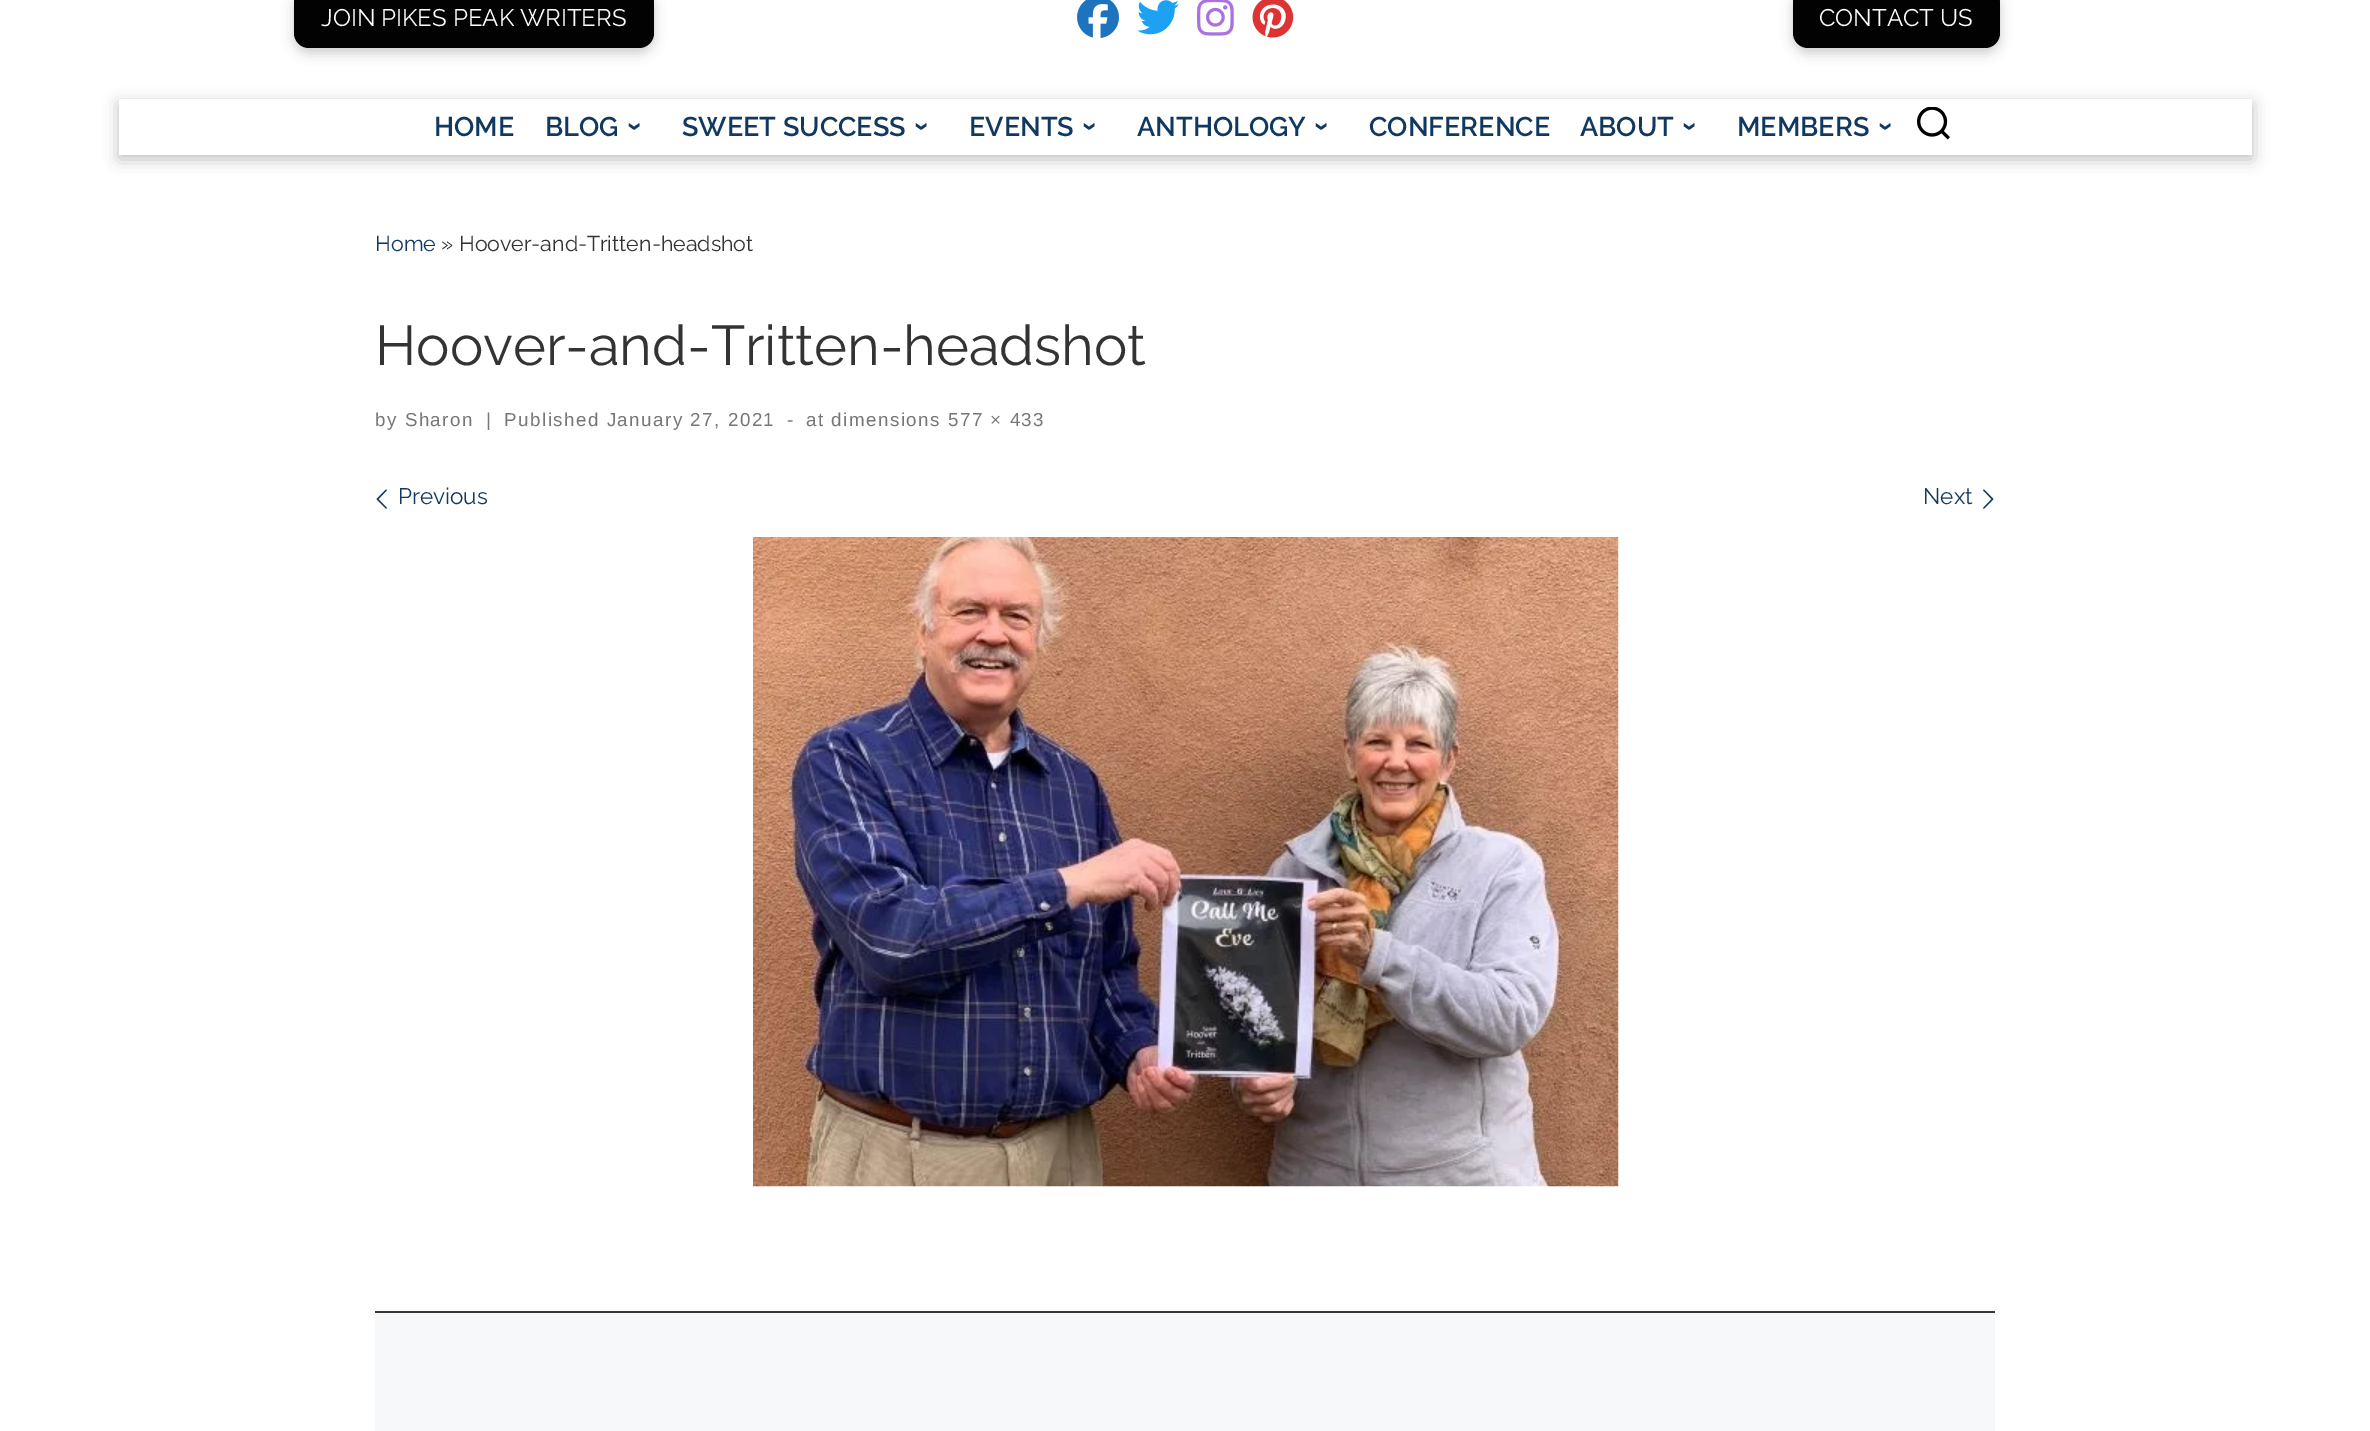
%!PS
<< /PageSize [2370 1431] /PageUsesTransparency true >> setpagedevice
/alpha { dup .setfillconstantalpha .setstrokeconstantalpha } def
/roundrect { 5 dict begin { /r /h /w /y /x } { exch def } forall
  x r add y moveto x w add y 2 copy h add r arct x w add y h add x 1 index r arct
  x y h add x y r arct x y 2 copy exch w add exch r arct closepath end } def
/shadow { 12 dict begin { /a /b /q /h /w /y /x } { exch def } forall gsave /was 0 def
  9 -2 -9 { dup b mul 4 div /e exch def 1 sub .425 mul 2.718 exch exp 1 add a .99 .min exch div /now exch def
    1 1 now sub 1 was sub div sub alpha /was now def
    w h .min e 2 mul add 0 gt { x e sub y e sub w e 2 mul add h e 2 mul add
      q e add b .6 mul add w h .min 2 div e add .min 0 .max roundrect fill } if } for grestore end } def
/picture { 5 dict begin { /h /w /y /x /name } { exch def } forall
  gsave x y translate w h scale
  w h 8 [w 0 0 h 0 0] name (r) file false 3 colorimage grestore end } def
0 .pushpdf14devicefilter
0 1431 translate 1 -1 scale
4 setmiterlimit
1 setgray
0 0 2370 1431 rectfill
0 setgray
294 -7 360 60 15 6 0.2 shadow
0.008 setgray
294 -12 360 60 15 roundrect fill
/Raleway-Thin [24 0 0 -24 0 0] selectfont
1 setgray
321 26 moveto (JOIN PIKES PEAK WRITERS) show
(img1.rgb) 1077 0 42 38 picture
(img2.rgb) 1137 0 42 35 picture
(img3.rgb) 1197 0 37 36 picture
(img4.rgb) 1252 0 42 38 picture
0 setgray
1793 -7 207 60 15 6 0.2 shadow
0.008 setgray
1793 -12 207 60 15 roundrect fill
1 setgray
1819 26 moveto (CONTACT US) show
0 setgray
119 104 2133 55 0 8 0.25 shadow
1 setgray
119 99 2133 56 rectfill
/Raleway-SemiBold [27 0 0 -27 0 0] selectfont
0.067 0.22 0.38 setrgbcolor
434 136 moveto (HOME) show
545 136 moveto (BLOG) show
/LiberationSans-Bold [27 0 0 -27 0 0] selectfont
gsave 627 122 translate 90 rotate 0 0 moveto (›) show grestore
/Raleway-SemiBold [27 0 0 -27 0 0] selectfont
682 136 moveto (SWEET SUCCESS) show
/LiberationSans-Bold [27 0 0 -27 0 0] selectfont
gsave 914 122 translate 90 rotate 0 0 moveto (›) show grestore
/Raleway-SemiBold [27 0 0 -27 0 0] selectfont
969 136 moveto (EVENTS) show
/LiberationSans-Bold [27 0 0 -27 0 0] selectfont
gsave 1082 122 translate 90 rotate 0 0 moveto (›) show grestore
/Raleway-SemiBold [27 0 0 -27 0 0] selectfont
1137 136 moveto (ANTHOLOGY) show
/LiberationSans-Bold [27 0 0 -27 0 0] selectfont
gsave 1314 122 translate 90 rotate 0 0 moveto (›) show grestore
/Raleway-SemiBold [27 0 0 -27 0 0] selectfont
1369 136 moveto (CONFERENCE) show
1580 136 moveto (ABOUT) show
/LiberationSans-Bold [27 0 0 -27 0 0] selectfont
gsave 1682 122 translate 90 rotate 0 0 moveto (›) show grestore
/Raleway-SemiBold [27 0 0 -27 0 0] selectfont
1737 136 moveto (MEMBERS) show
/LiberationSans-Bold [27 0 0 -27 0 0] selectfont
gsave 1878 122 translate 90 rotate 0 0 moveto (›) show grestore
(img5.rgb) 1917 107 33 33 picture
/Raleway-Thin [21.4 0 0 -21.4 0 0] selectfont
375 251 moveto (Home) show
0.2 setgray
441 251 moveto (» Hoover-and-Tritten-headshot) show
/Raleway-Thin [56 0 0 -56 0 0] selectfont
375 365 moveto (Hoover-and-Tritten-headshot) show
/LiberationSans-Regular [18.75 0 0 -18.75 0 0] selectfont
0.467 setgray
375 426 moveto 1.5 0 (by Sharon) ashow
486 426 moveto 1.5 0 (|) ashow
504 426 moveto 1.5 0 (Published January 27, 2021) ashow
787 426 moveto 1.5 0 (-) ashow
806 426 moveto 1.5 0 (at dimensions 577 × 433) ashow
(img6.rgb) 376 489 11 20 picture
/Raleway-Thin [22.5 0 0 -22.5 0 0] selectfont
0.067 0.22 0.38 setrgbcolor
398 504 moveto (Previous) show
1923 504 moveto (Next) show
(img7.rgb) 1983 489 11 20 picture
(img8.rgb) 753 537 866 650 picture
0.969 0.973 0.976 setrgbcolor
375 1313 1620 118 rectfill
0.212 setgray
375 1311 1620 2 rectfill
.poppdf14devicefilter showpage
